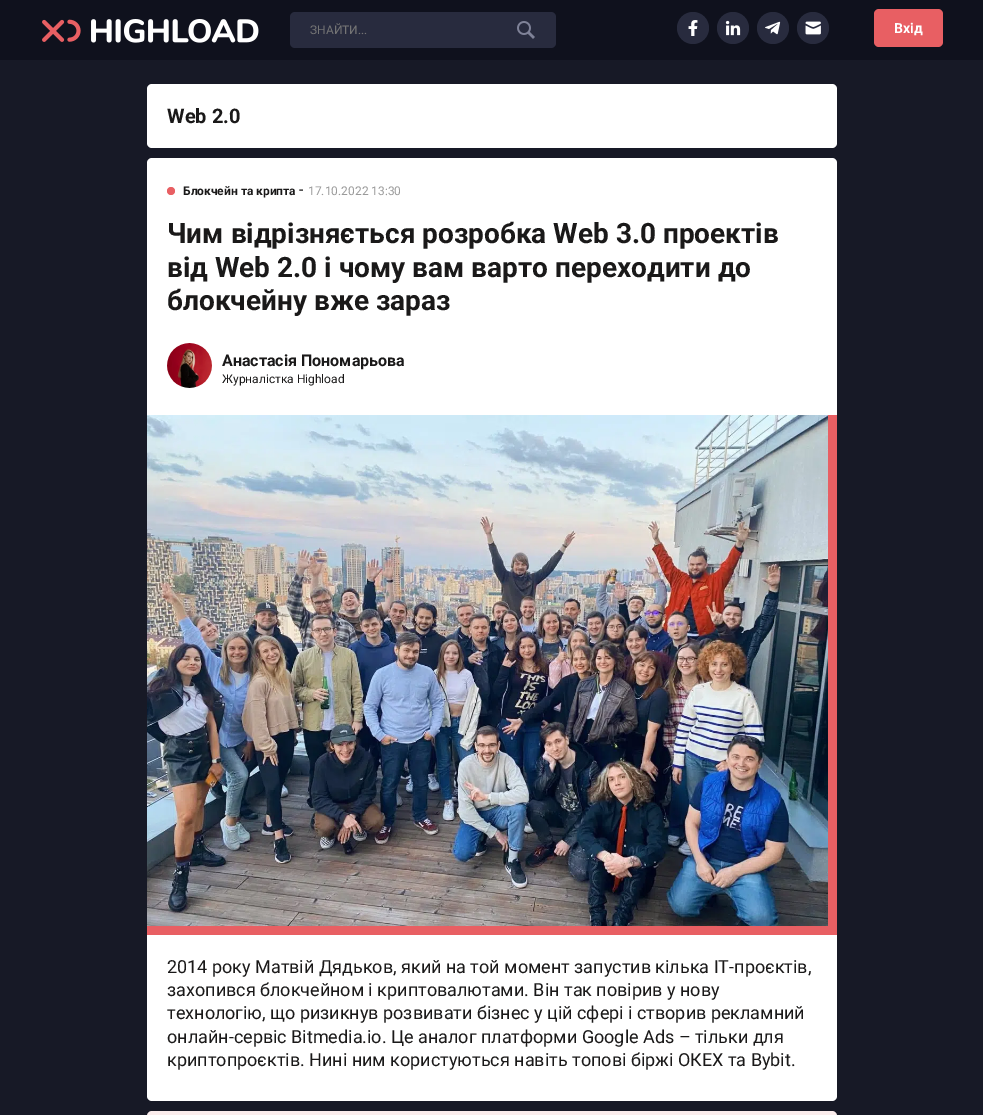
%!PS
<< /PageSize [983 1115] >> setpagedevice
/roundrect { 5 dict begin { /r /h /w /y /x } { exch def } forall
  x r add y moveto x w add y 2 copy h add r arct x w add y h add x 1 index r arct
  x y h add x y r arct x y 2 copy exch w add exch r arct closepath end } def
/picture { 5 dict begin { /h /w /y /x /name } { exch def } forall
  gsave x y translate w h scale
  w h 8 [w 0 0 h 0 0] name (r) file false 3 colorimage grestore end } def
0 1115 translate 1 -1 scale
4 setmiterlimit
0.09 0.098 0.149 setrgbcolor
0 0 983 1115 rectfill
0.059 0.067 0.114 setrgbcolor
0 0 983 60 rectfill
(img1.rgb) 42 19 217 24 picture
0.157 0.169 0.243 setrgbcolor
290 12 266 36 5 roundrect fill
/Roboto-Regular [12 0 0 -12 0 0] selectfont
0.459 setgray
310 34 moveto (ЗНАЙТИ...) show
(img2.rgb) 517 21 18 18 picture
0.157 0.169 0.243 setrgbcolor
newpath 693 28 16 0 360 arc closepath fill
(img3.rgb) 688 20 10 16 picture
newpath 733 28 16 0 360 arc closepath fill
(img4.rgb) 725 20 16 16 picture
newpath 773 28 16 0 360 arc closepath fill
(img5.rgb) 765 21 16 14 picture
newpath 813 28 16 0 360 arc closepath fill
(img6.rgb) 805 21 16 14 picture
0.91 0.373 0.388 setrgbcolor
874 9 69 38 5 roundrect fill
/Roboto-Bold [14 0 0 -14 0 0] selectfont
1 setgray
894 33 moveto (Вхід) show
147 84 690 64 5 roundrect fill
/Roboto-Bold [20 0 0 -20 0 0] selectfont
0.102 0.098 0.098 setrgbcolor
167 123 moveto (Web 2.0) show
1 setgray
147 158 690 943 5 roundrect fill
0.91 0.373 0.388 setrgbcolor
newpath 171 191 4 0 360 arc closepath fill
/Roboto-Bold [12 0 0 -12 0 0] selectfont
0.102 0.098 0.098 setrgbcolor
183 195 moveto (Блокчейн та крипта) show
/Roboto-Regular [16 0 0 -16 0 0] selectfont
299 195 moveto (-) show
/Roboto-Regular [12 0 0 -12 0 0] selectfont
0.604 setgray
308 195 moveto (17.10.2022 13:30) show
/Roboto-Bold [28 0 0 -28 0 0] selectfont
0.102 0.098 0.098 setrgbcolor
167 243 moveto (Чим відрізняється розробка Web 3.0 проектів) show
167 277 moveto (від Web 2.0 і чому вам варто переходити до) show
167 310 moveto (блокчейну вже зараз) show
(img7.rgb) 167 343 45 45 picture
/Roboto-Bold [16 0 0 -16 0 0] selectfont
222 366 moveto (Анастасія Пономарьова) show
/Roboto-Regular [12 0 0 -12 0 0] selectfont
222 383 moveto (Журналістка Highload) show
(img8.rgb) 147 415 681 511 picture
0.91 0.373 0.388 setrgbcolor
828 415 9 511 rectfill
147 926 690 9 rectfill
/Roboto-Regular [18 0 0 -18 0 0] selectfont
0.102 0.098 0.098 setrgbcolor
167 973 moveto (2014 року Матвій Дядьков, який на той момент запустив кілька IT-проєктів,) show
167 996 moveto (захопився блокчейном і криптовалютами. Він так повірив у нову) show
167 1019 moveto (технологію, що ризикнув розвивати бізнес у цій сфері і створив рекламний) show
167 1043 moveto (онлайн-сервіс Bitmedia.io. Це аналог платформи Google Ads – тільки для) show
167 1066 moveto (криптопроєктів. Нині ним користуються навіть топові біржі ОКЕХ та Bybit.) show
0.984 0.929 0.929 setrgbcolor
147 1111 690 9 5 roundrect fill
showpage
